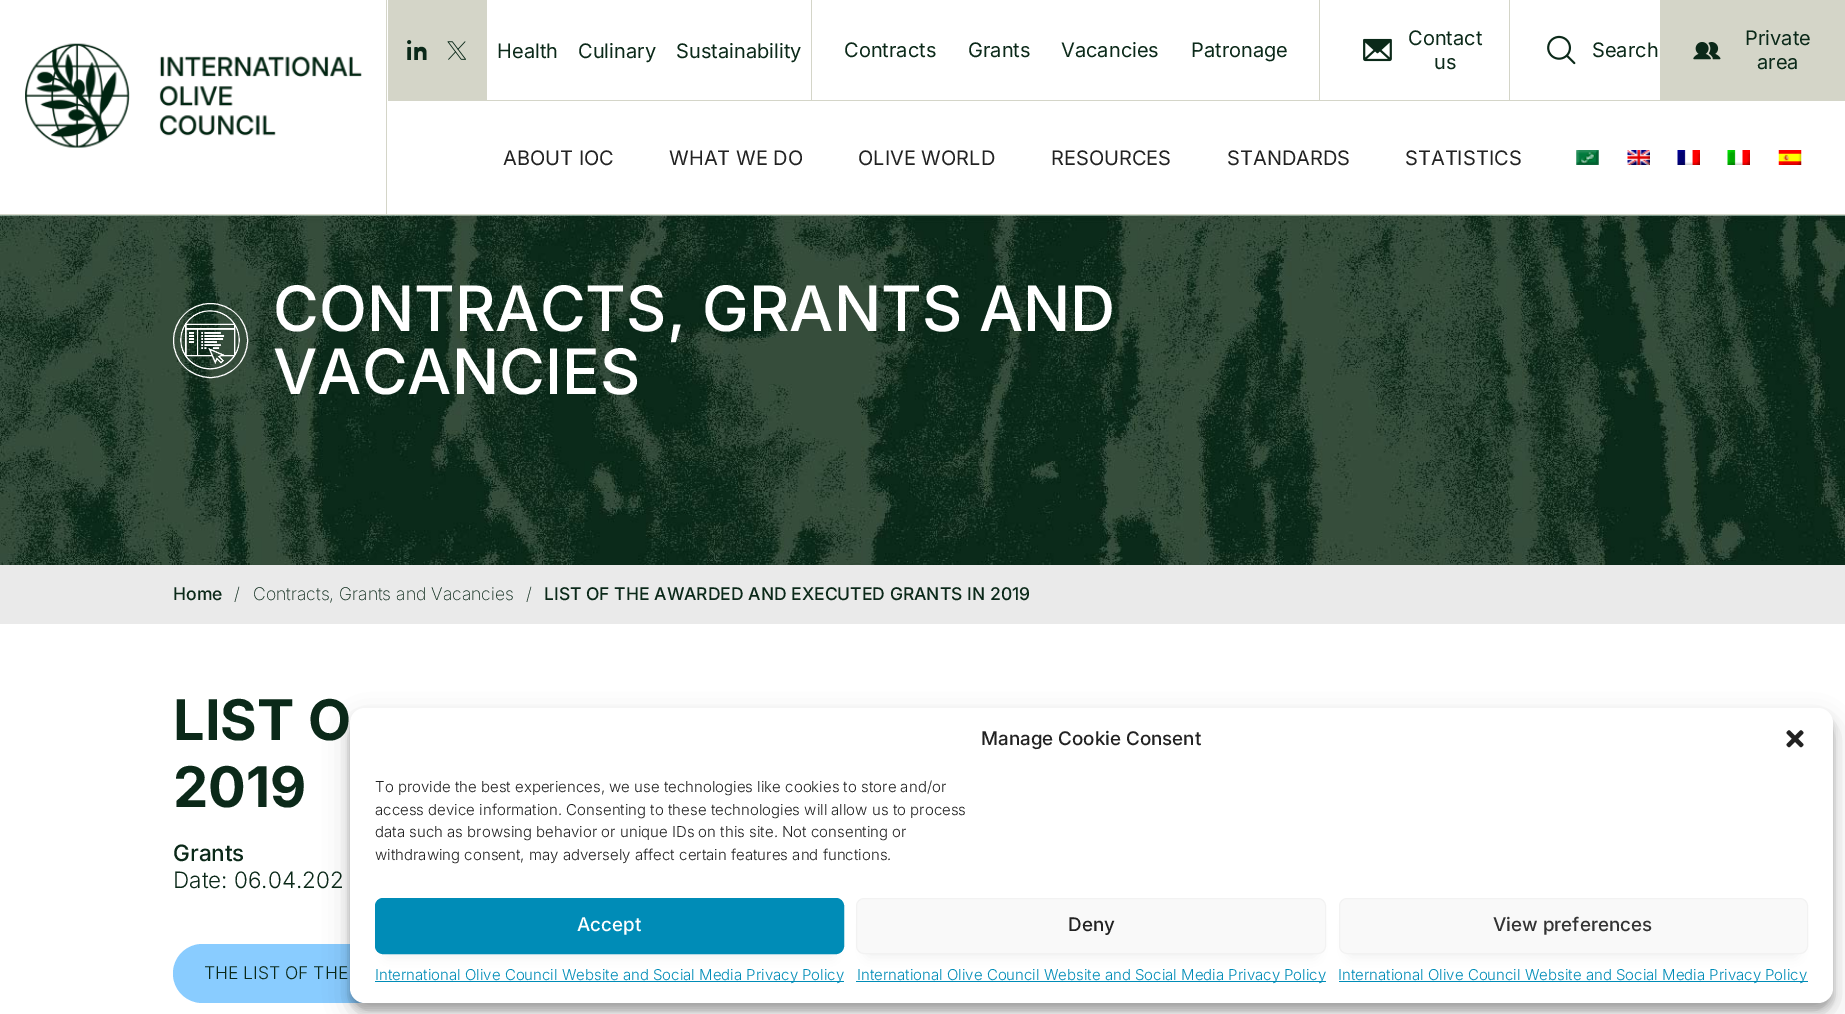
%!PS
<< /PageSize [1845 1014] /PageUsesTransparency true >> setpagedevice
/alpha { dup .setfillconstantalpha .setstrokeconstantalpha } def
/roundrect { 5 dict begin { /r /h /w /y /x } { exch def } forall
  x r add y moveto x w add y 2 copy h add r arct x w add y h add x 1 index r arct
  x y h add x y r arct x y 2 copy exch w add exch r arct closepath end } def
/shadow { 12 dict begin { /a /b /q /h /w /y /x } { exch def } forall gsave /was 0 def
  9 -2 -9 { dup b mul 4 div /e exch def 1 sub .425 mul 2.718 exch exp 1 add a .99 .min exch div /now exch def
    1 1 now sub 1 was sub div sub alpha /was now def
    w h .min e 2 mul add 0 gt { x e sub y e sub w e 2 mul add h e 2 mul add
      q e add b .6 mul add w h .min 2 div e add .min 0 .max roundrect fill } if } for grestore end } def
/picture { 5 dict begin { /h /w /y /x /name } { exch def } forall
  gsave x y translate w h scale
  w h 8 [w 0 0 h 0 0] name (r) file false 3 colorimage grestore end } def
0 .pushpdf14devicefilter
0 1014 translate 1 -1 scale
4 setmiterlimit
1 setgray
0 0 1845 1014 rectfill
0.831 0.835 0.784 setrgbcolor
386 0 1 215 rectfill
0 214 1845 1 rectfill
(img1.rgb) 25 43 337 105 picture
388 100 1457 1 rectfill
388 0 99 100 rectfill
(img2.rgb) 407 40 20 20 picture
(img3.rgb) 447 41 19 19 picture
/Inter-Regular [20 0 0 -20 0 0] selectfont
0.043 0.161 0.098 setrgbcolor
497 58 moveto (Health) show
578 58 moveto (Culinary) show
676 58 moveto (Sustainability) show
0.831 0.835 0.784 setrgbcolor
811 0 1 100 rectfill
0.043 0.161 0.098 setrgbcolor
844 57 moveto (Contracts) show
968 57 moveto (Grants) show
1061 57 moveto (Vacancies) show
1191 57 moveto (Patronage) show
0.831 0.835 0.784 setrgbcolor
1319 0 1 100 rectfill
(img4.rgb) 1363 38 29 24 picture
0.043 0.161 0.098 setrgbcolor
1408 45 moveto (Contact) show
1434 69 moveto (us) show
0.831 0.835 0.784 setrgbcolor
1509 0 1 100 rectfill
(img5.rgb) 1547 35 29 30 picture
0.043 0.161 0.098 setrgbcolor
1592 57 moveto (Search) show
0.831 0.835 0.784 setrgbcolor
1660 0 185 100 rectfill
0.043 0.161 0.098 setrgbcolor
1745 45 moveto (Private) show
(img6.rgb) 1693 42 28 18 picture
1757 69 moveto (area) show
0.133 setgray
503 165 moveto (ABOUT IOC) show
669 165 moveto (WHAT WE DO) show
858 165 moveto (OLIVE WORLD) show
1051 165 moveto (RESOURCES) show
1227 165 moveto (STANDARDS) show
1405 165 moveto (STATISTICS) show
(img7.rgb) 1576 150 23 15 picture
(img8.rgb) 1627 150 23 15 picture
(img9.rgb) 1677 150 23 15 picture
(img10.rgb) 1727 150 23 15 picture
(img11.rgb) 1778 150 24 15 picture
(img12.rgb) 0 215 1845 350 picture
1 setgray
newpath 210.5 340.5 37 0 360 arc closepath stroke
(img13.rgb) 180 310 60 60 picture
/Inter-Medium [62.5 0 0 -62.5 0 0] selectfont
273 331 moveto (CONTRACTS, GRANTS AND) show
273 394 moveto (VACANCIES) show
0.918 setgray
0 565 1845 59 rectfill
/Inter-Medium [17.5 0 0 -17.5 0 0] selectfont
0.043 0.161 0.098 setrgbcolor
173 600 moveto (Home) show
/Inter-ExtraLight [17.5 0 0 -17.5 0 0] selectfont
234 600 moveto (/) show
253 600 moveto (Contracts, Grants and Vacancies) show
526 600 moveto (/) show
/Inter-Medium [17.5 0 0 -17.5 0 0] selectfont
544 600 moveto (LIST OF THE AWARDED AND EXECUTED GRANTS IN 2019) show
/Inter-Bold [56 0 0 -56 0 0] selectfont
173 740 moveto (LIST O) show
173 807 moveto (2019) show
/Inter-Medium [22.5 0 0 -22.5 0 0] selectfont
173 861 moveto (Grants) show
/Inter-Light [22.5 0 0 -22.5 0 0] selectfont
173 888 moveto (Date: 06.04.202) show
0.537 0.8 1 setrgbcolor
173 944 441 59 29.5 roundrect fill
/Inter-Light [17.5 0 0 -17.5 0 0] selectfont
0.043 0.161 0.098 setrgbcolor
204 979 moveto (THE LIST OF THE) show
0 setgray
350 715 1483 295 15 4 0.23 shadow
350 720 1483 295 15 12.5 0.19 shadow
1 setgray
350 708 1483 295 15 roundrect fill
/Inter-Medium [18.75 0 0 -18.75 0 0] selectfont
0.133 setgray
981 745 moveto (Manage Cookie Consent) show
(img14.rgb) 1786 730 18 18 picture
/Inter-Light [15 0 0 -15 0 0] selectfont
375 792 moveto (To provide the best experiences, we use technologies like cookies to store and/or) show
375 815 moveto (access device information. Consenting to these technologies will allow us to process) show
375 837 moveto (data such as browsing behavior or unique IDs on this site. Not consenting or) show
375 860 moveto (withdrawing consent, may adversely affect certain features and functions.) show
0.137 0.173 0.224 setrgbcolor
388 923 443 31 0 6 0.1 shadow
0 0.549 0.718 setrgbcolor
375.5 898.5 468 55 7.5 roundrect gsave fill grestore
stroke
/Inter-Medium [18.75 0 0 -18.75 0 0] selectfont
1 setgray
577 931 moveto (Accept) show
0.137 0.173 0.224 setrgbcolor
869 923 445 31 0 6 0.1 shadow
0.976 setgray
856.5 898.5 469 55 7.5 roundrect gsave fill grestore
0.949 setgray
stroke
0.133 setgray
1068 931 moveto (Deny) show
0.137 0.173 0.224 setrgbcolor
1351 923 444 31 0 6 0.1 shadow
0.976 setgray
1339.5 898.5 468 55 7.5 roundrect gsave fill grestore
0.949 setgray
stroke
0.2 setgray
1493 931 moveto (View preferences) show
0 0.549 0.718 setrgbcolor
375 981 469 1 rectfill
/Inter-Light [15 0 0 -15 0 0] selectfont
375 980 moveto (International Olive Council Website and Social Media Privacy Policy) show
856 981 470 1 rectfill
857 980 moveto (International Olive Council Website and Social Media Privacy Policy) show
1339 981 469 1 rectfill
1338 980 moveto (International Olive Council Website and Social Media Privacy Policy) show
.poppdf14devicefilter showpage
